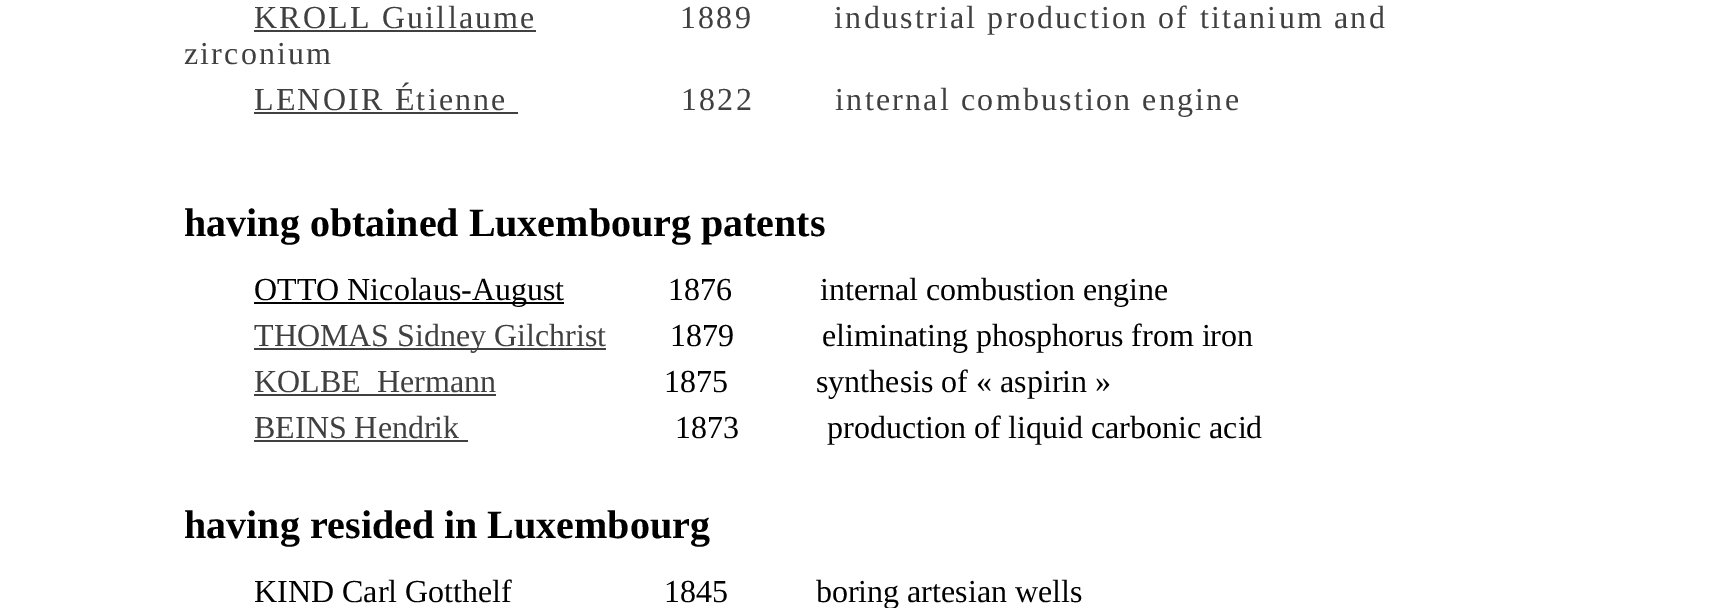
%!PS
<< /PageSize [1728 608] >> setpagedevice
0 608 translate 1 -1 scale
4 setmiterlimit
1 setgray
0 0 1728 608 rectfill
/LiberationSerif-Regular [32 0 0 -32 0 0] selectfont
0.251 setgray
254 28 moveto 2.2 0 (KROLL Guillaume) ashow
254 30 282 2 rectfill
680 28 moveto 2.2 0 (1889        industrial production of titanium and) ashow
184 64 moveto 2.2 0 (zirconium) ashow
254 110 moveto 2.2 0 (LENOIR Étienne) ashow
254 112 264 2 rectfill
681 110 moveto 2.2 0 (1822        internal combustion engine) ashow
/LiberationSerif-Bold [40 0 0 -40 0 0] selectfont
0 setgray
184 236 moveto (having obtained Luxembourg patents) show
254 302 310 2 rectfill
/LiberationSerif-Regular [32 0 0 -32 0 0] selectfont
254 300 moveto (OTTO Nicolaus-August) show
668 300 moveto (1876           internal combustion engine) show
0.251 setgray
254 348 352 2 rectfill
254 346 moveto (THOMAS Sidney Gilchrist) show
0 setgray
670 346 moveto (1879           eliminating phosphorus from iron) show
0.251 setgray
254 392 moveto (KOLBE  Hermann) show
254 394 242 2 rectfill
0 setgray
664 392 moveto (1875           synthesis of « aspirin ») show
0.251 setgray
254 438 moveto (BEINS Hendrik) show
254 440 214 2 rectfill
0 setgray
675 438 moveto (1873           production of liquid carbonic acid) show
/LiberationSerif-Bold [40 0 0 -40 0 0] selectfont
184 538 moveto (having resided in Luxembourg) show
/LiberationSerif-Regular [32 0 0 -32 0 0] selectfont
254 602 moveto (KIND Carl Gotthelf                   1845           boring artesian wells) show
showpage
